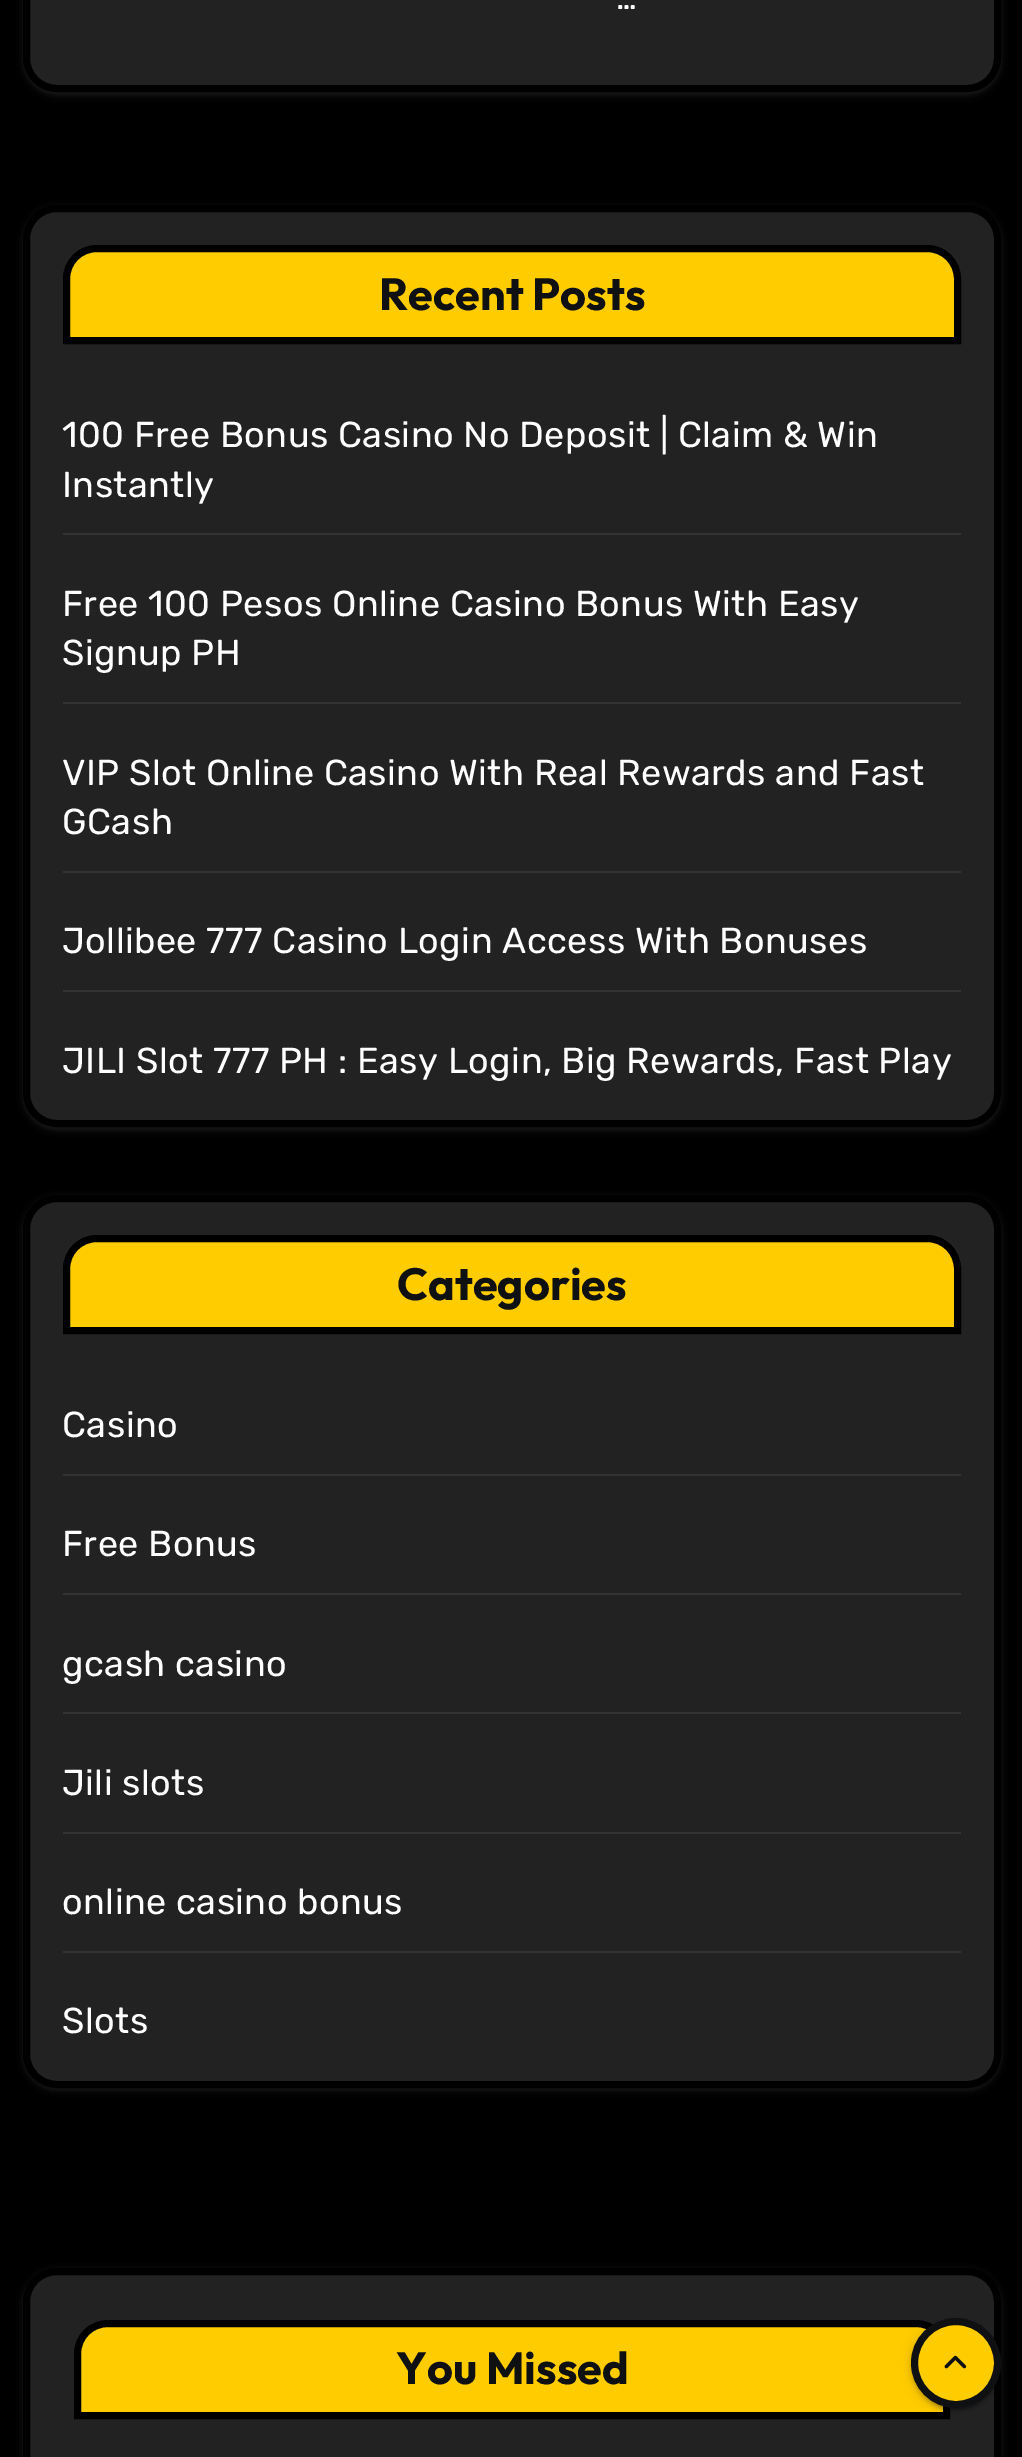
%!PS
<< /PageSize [1022 2457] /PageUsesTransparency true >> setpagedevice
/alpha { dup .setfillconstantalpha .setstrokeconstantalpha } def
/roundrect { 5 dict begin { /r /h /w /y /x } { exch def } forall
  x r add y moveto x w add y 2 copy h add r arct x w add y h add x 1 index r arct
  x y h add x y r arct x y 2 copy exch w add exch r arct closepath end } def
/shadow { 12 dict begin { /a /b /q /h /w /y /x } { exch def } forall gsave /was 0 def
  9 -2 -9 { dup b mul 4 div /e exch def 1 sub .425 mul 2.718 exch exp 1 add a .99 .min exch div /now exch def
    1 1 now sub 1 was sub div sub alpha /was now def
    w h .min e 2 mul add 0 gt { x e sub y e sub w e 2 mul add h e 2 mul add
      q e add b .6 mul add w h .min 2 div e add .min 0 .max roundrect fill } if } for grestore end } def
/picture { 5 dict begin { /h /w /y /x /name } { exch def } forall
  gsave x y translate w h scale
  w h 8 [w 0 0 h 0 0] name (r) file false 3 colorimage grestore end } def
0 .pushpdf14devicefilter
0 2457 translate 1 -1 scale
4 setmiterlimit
0 setgray
0 0 1022 2457 rectfill
0.725 setgray
23 -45 978 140 34 3.5 0.15 shadow
0.133 setgray
26.5 -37.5 971 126 30.5 roundrect gsave fill grestore
0 setgray
7 setlinewidth
stroke
/Rubik-Light [34 0 0 -34 0 0] selectfont
1 setgray
616 9 moveto (…) show
0.725 setgray
23 207 978 923 34 3.5 0.15 shadow
0.133 setgray
26.5 208.5 971 915 30.5 roundrect gsave fill grestore
0 setgray
stroke
1 0.8 0 setrgbcolor
newpath 97 248.5 moveto 927 248.5 lineto 944 248.5 957.5 262 957.5 279 curveto 957.5 340.5 lineto 66.5 340.5 lineto 66.5 279 lineto 66.5 262 80 248.5 97 248.5 curveto closepath gsave fill grestore
0 setgray
stroke
/Outfit-Bold [45 0 0 -45 0 0] selectfont
0.059 0.063 0.071 setrgbcolor
379 310 moveto (Recent Posts) show
0.2 setgray
63 533 898 2 rectfill
/Rubik-Light [36 0 0 -36 0 0] selectfont
1 setgray
62 447 moveto 0.45 0 (100 Free Bonus Casino No Deposit | Claim & Win) ashow
62 497 moveto 0.45 0 (Instantly) ashow
0.2 setgray
63 702 898 2 rectfill
1 setgray
62 616 moveto 0.45 0 (Free 100 Pesos Online Casino Bonus With Easy) ashow
62 665 moveto 0.45 0 (Signup PH) ashow
0.2 setgray
63 871 898 2 rectfill
1 setgray
62 785 moveto 0.45 0 (VIP Slot Online Casino With Real Rewards and Fast) ashow
62 834 moveto 0.45 0 (GCash) ashow
0.2 setgray
63 990 898 2 rectfill
1 setgray
62 953 moveto 0.45 0 (Jollibee 777 Casino Login Access With Bonuses) ashow
62 1073 moveto 0.45 0 (JILI Slot 777 PH : Easy Login, Big Rewards, Fast Play) ashow
0.725 setgray
23 1197 978 893 34 3.5 0.15 shadow
0.133 setgray
26.5 1198.5 971 886 30.5 roundrect gsave fill grestore
0 setgray
stroke
1 0.8 0 setrgbcolor
newpath 97 1238.5 moveto 927 1238.5 lineto 944 1238.5 957.5 1252 957.5 1269 curveto 957.5 1330.5 lineto 66.5 1330.5 lineto 66.5 1269 lineto 66.5 1252 80 1238.5 97 1238.5 curveto closepath gsave fill grestore
0 setgray
stroke
/Outfit-Bold [45 0 0 -45 0 0] selectfont
0.059 0.063 0.071 setrgbcolor
397 1300 moveto (Categories) show
0.2 setgray
63 1474 898 2 rectfill
/Rubik-Light [36 0 0 -36 0 0] selectfont
1 setgray
62 1437 moveto 0.45 0 (Casino) ashow
0.2 setgray
63 1593 898 2 rectfill
1 setgray
62 1556 moveto 0.45 0 (Free Bonus) ashow
0.2 setgray
63 1712 898 2 rectfill
1 setgray
62 1676 moveto 0.45 0 (gcash casino) ashow
0.2 setgray
63 1832 898 2 rectfill
1 setgray
62 1795 moveto 0.45 0 (Jili slots) ashow
0.2 setgray
63 1951 898 2 rectfill
1 setgray
62 1914 moveto 0.45 0 (online casino bonus) ashow
62 2033 moveto 0.45 0 (Slots) ashow
0.725 setgray
23 2270 978 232 34 3.5 0.15 shadow
0.133 setgray
26.5 2271.5 971 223 30.5 roundrect gsave fill grestore
0 setgray
stroke
1 0.8 0 setrgbcolor
newpath 108 2323.5 moveto 916 2323.5 lineto 933 2323.5 946.5 2337 946.5 2354 curveto 946.5 2415.5 lineto 77.5 2415.5 lineto 77.5 2354 lineto 77.5 2337 91 2323.5 108 2323.5 curveto closepath gsave fill grestore
0 setgray
stroke
/Outfit-Bold [45 0 0 -45 0 0] selectfont
0.059 0.063 0.071 setrgbcolor
396 2384 moveto (You Missed) show
0 setgray
911 2320 90 90 45 5.5 0.12 shadow
916 2329 81 81 40.5 1 0.2 shadow
911 2322 90 90 45 2 0.14 shadow
1 0.8 0 setrgbcolor
newpath 956 2363 41.5 0 360 arc closepath gsave fill grestore
0.059 0.063 0.071 setrgbcolor
stroke
(img1.rgb) 944 2355 23 14 picture
.poppdf14devicefilter showpage
